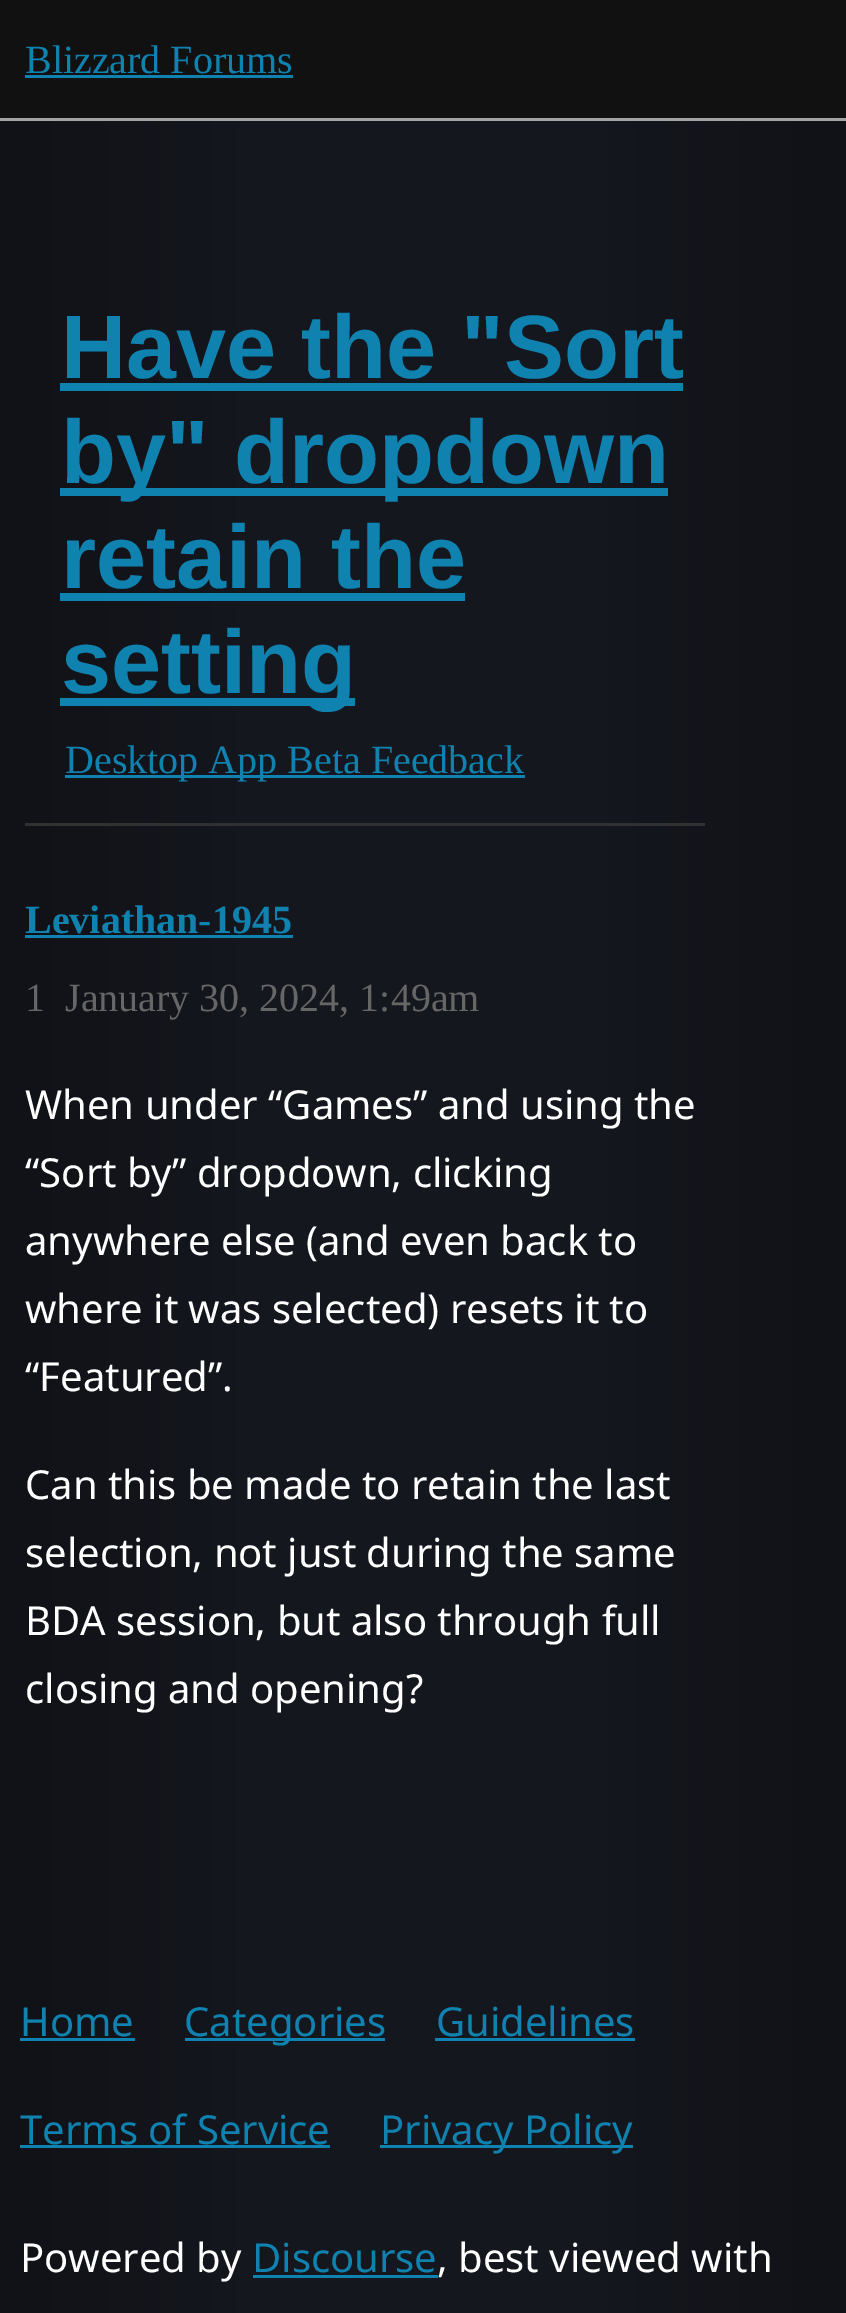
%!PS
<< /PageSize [846 2313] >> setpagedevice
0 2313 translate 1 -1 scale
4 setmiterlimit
1 setgray
0 0 846 2313 rectfill
gsave newpath 0 121 moveto 846 121 lineto 846 2313 lineto 0 2313 lineto closepath clip newpath
<< /ShadingType 2 /ColorSpace /DeviceRGB /Coords [0 1190 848 1190] /Extend [true true] /Function << /FunctionType 3 /Domain [0 1] /Functions [<< /FunctionType 2 /Domain [0 1] /C0 [0.067 0.071 0.09] /C1 [0.082 0.09 0.118] /N 1 >> << /FunctionType 2 /Domain [0 1] /C0 [0.082 0.09 0.118] /C1 [0.082 0.09 0.118] /N 1 >> << /FunctionType 2 /Domain [0 1] /C0 [0.082 0.09 0.118] /C1 [0.067 0.071 0.09] /N 1 >>] /Bounds [0.3 0.7] /Encode [0 1 0 1 0 1] >> >> shfill grestore
0.067 setgray
0 0 846 118 rectfill
0.643 setgray
0 118 846 3 rectfill
/LiberationSerif-Regular [40 0 0 -40 0 0] selectfont
0.059 0.51 0.686 setrgbcolor
25 73 moveto (Blizzard Forums) show
25 75 268 3 rectfill
/LiberationSans-Bold [90 0 0 -90 0 0] selectfont
61 378 moveto (Have the "Sort) show
60 383 623 8 rectfill
60 488 608 8 rectfill
61 483 moveto (by" dropdown) show
61 588 moveto (retain the) show
60 593 405 8 rectfill
60 698 295 8 rectfill
61 693 moveto (setting) show
65 775 460 3 rectfill
/LiberationSerif-Regular [40 0 0 -40 0 0] selectfont
65 773 moveto (Desktop App Beta Feedback) show
0.192 setgray
25 823 680 3 rectfill
/LiberationSerif-Bold [40 0 0 -40 0 0] selectfont
0.059 0.51 0.686 setrgbcolor
25 933 moveto (Leviathan-1945) show
25 935 268 3 rectfill
/LiberationSerif-Regular [40 0 0 -40 0 0] selectfont
0.4 setgray
25 1011 moveto (1) show
65 1011 moveto (January 30, 2024, 1:49am) show
/NotoSans-Regular [40 0 0 -40 0 0] selectfont
1 setgray
25 1119 moveto (When under “Games” and using the) show
25 1187 moveto (“Sort by” dropdown, clicking) show
25 1255 moveto (anywhere else \(and even back to) show
25 1323 moveto (where it was selected\) resets it to) show
25 1391 moveto (“Featured”.) show
25 1499 moveto (Can this be made to retain the last) show
25 1567 moveto (selection, not just during the same) show
25 1635 moveto (BDA session, but also through full) show
25 1703 moveto (closing and opening?) show
0.059 0.51 0.686 setrgbcolor
20 2036 moveto (Home) show
20 2038 115 3 rectfill
185 2038 200 3 rectfill
184 2036 moveto (Categories) show
436 2036 moveto (Guidelines) show
435 2038 200 3 rectfill
20 2144 moveto (Terms of Service) show
20 2145 310 3 rectfill
380 2145 253 3 rectfill
380 2144 moveto (Privacy Policy) show
1 setgray
20 2272 moveto (Powered by) show
0.059 0.51 0.686 setrgbcolor
252 2272 moveto (Discourse) show
253 2275 185 3 rectfill
1 setgray
437 2272 moveto (, best viewed with) show
showpage
